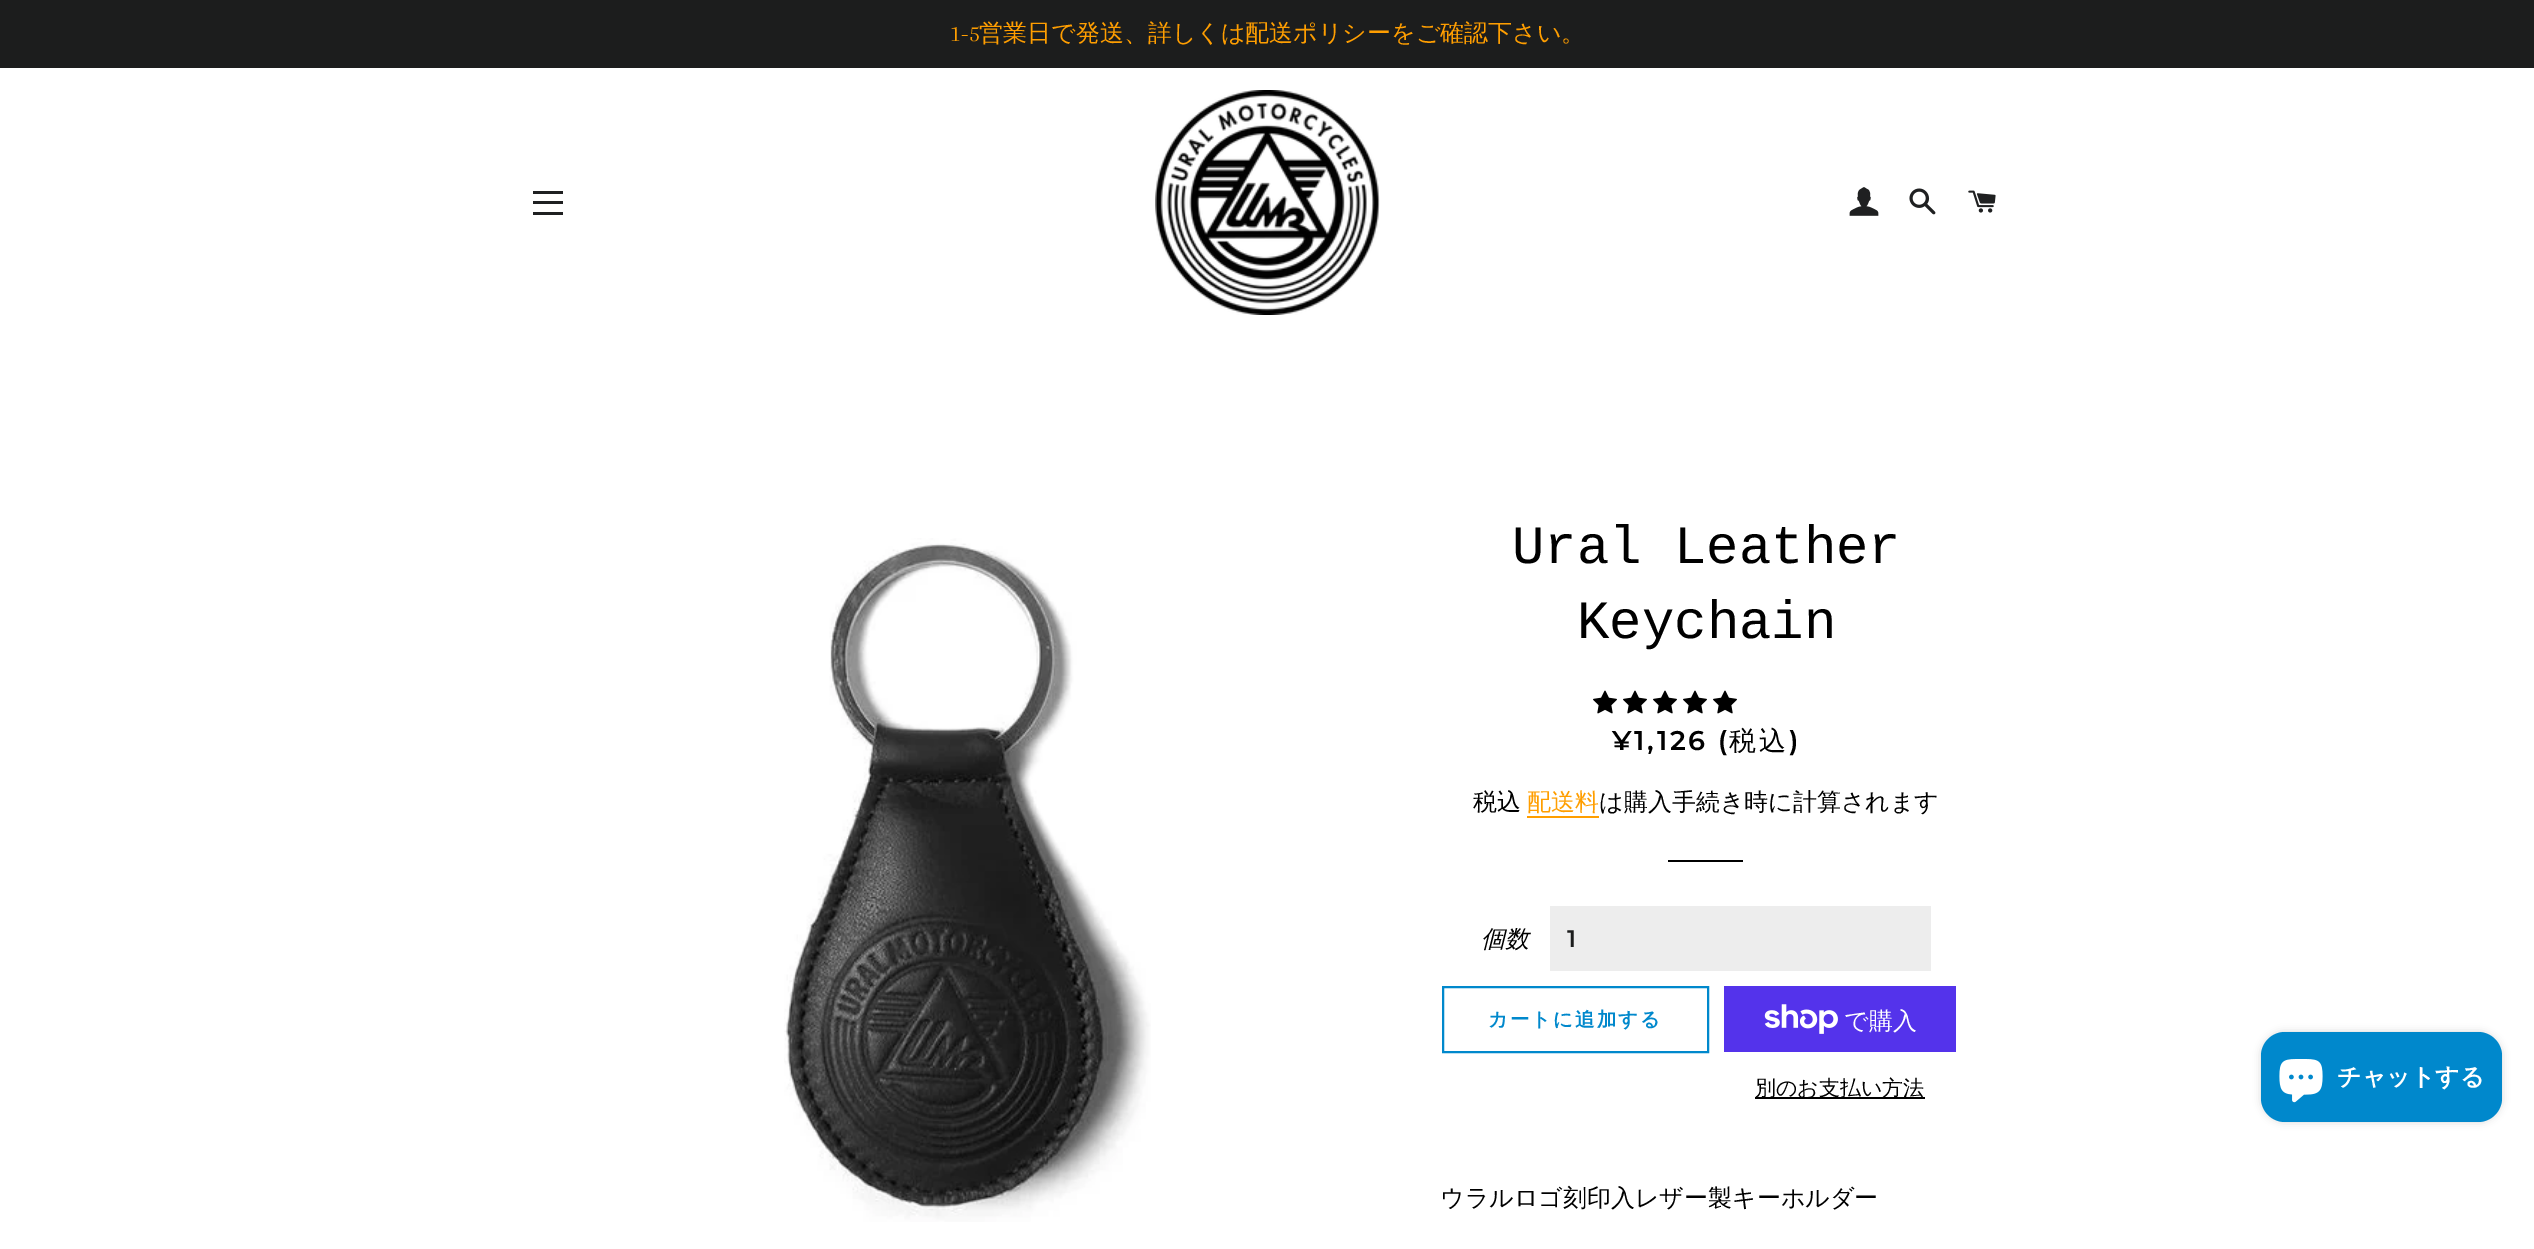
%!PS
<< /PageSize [2534 1249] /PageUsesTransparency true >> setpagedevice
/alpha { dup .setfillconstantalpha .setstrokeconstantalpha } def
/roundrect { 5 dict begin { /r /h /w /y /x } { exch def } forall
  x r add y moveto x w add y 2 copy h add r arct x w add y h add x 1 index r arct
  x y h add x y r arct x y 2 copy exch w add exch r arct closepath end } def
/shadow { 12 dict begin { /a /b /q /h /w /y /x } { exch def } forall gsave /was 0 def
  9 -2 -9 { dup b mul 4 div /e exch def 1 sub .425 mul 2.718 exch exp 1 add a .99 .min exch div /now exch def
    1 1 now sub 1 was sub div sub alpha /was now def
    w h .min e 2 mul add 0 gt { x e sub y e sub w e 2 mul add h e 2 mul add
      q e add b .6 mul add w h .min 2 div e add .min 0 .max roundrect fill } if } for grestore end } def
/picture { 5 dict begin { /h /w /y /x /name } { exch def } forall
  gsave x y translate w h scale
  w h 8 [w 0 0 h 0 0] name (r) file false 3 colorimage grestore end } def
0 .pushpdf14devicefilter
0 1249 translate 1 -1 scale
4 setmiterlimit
1 setgray
0 0 2534 1249 rectfill
0.11 0.114 0.114 setrgbcolor
0 0 2534 68 rectfill
/Arapey-Regular [24 0 0 -24 0 0] selectfont
1 0.62 0 setrgbcolor
950 41 moveto (1-5) show
/WenQuanYiZenHei-Medium [24 0 0 -24 0 0] selectfont
979 41 moveto (営業日で発送、詳しくは配送ポリシーをご確認下さい。) show
0.122 0.125 0.129 setrgbcolor
533 191 30 3 rectfill
533 201 30 3 rectfill
533 212 30 3 rectfill
(img1.rgb) 1155 90 225 225 picture
(img2.rgb) 1849 187 30 29 picture
(img3.rgb) 1909 188 27 27 picture
(img4.rgb) 1968 190 28 23 picture
(img5.rgb) 784 538 367 684 picture
/LiberationMono-Regular [54 0 0 -54 0 0] selectfont
0 setgray
1512 563 moveto (Ural Leather) show
1577 638 moveto (Keychain) show
(img6.rgb) 1593 690 24 24 picture
(img6.rgb) 1623 690 24 24 picture
(img6.rgb) 1653 690 24 24 picture
(img6.rgb) 1683 690 24 24 picture
(img6.rgb) 1713 690 24 24 picture
/Montserrat-SemiBold [27 0 0 -27 0 0] selectfont
1612 750 moveto 2.75 0 (¥1,126 \() ashow
/WenQuanYiZenHei-Medium [27 0 0 -27 0 0] selectfont
1729 750 moveto 2.75 0 (税込) ashow
/Montserrat-SemiBold [27 0 0 -27 0 0] selectfont
1789 750 moveto 2.75 0 (\)) ashow
/WenQuanYiZenHei-Medium [24 0 0 -24 0 0] selectfont
1473 810 moveto (税込) show
1 0.62 0 setrgbcolor
1527 810 moveto (配送料) show
1527 816 72 2 rectfill
0 setgray
1599 810 moveto (は購入手続き時に計算されます) show
1668 860 75 2 rectfill
/WenQuanYiZenHei-MediumItalic [24 0 0 -24 0 0] selectfont
1481 947 moveto (個数) show
0.929 setgray
1550 906 381 65 rectfill
/Montserrat-SemiBold [24 0 0 -24 0 0] selectfont
0.11 0.114 0.114 setrgbcolor
1567 947 moveto 2 0 (1) ashow
0 0.533 0.8 setrgbcolor
2 setlinewidth
1443 987 265 65 rectstroke
/WenQuanYiZenHei-Bold [19.5 0 0 -19.5 0 0] selectfont
1488 1026 moveto 2 0 (カートに追加する) ashow
0.329 0.2 0.922 setrgbcolor
1724 986 232 66 rectfill
(img7.rgb) 1764 1004 74 30 picture
/WenQuanYiZenHei-Medium [24 0 0 -24 0 0] selectfont
1 setgray
1844 1029 moveto (で購入) show
0 setgray
1755 1097 170 2 rectfill
/WenQuanYiZenHei-Medium [21 0 0 -21 0 0] selectfont
1755 1095 moveto (別のお支払い方法) show
/WenQuanYiZenHei-Medium [24 0 0 -24 0 0] selectfont
1440 1206 moveto (ウラルロゴ刻印入レザー製キーホルダー) show
2261 1032 241 90 24 4 0.15 shadow
0 0.533 0.8 setrgbcolor
2261 1032 241 90 24 roundrect fill
(img8.rgb) 2279 1059 44 44 picture
/WenQuanYiZenHei-Bold [24 0 0 -24 0 0] selectfont
1 setgray
2337 1085 moveto (チャットする) show
.poppdf14devicefilter showpage
